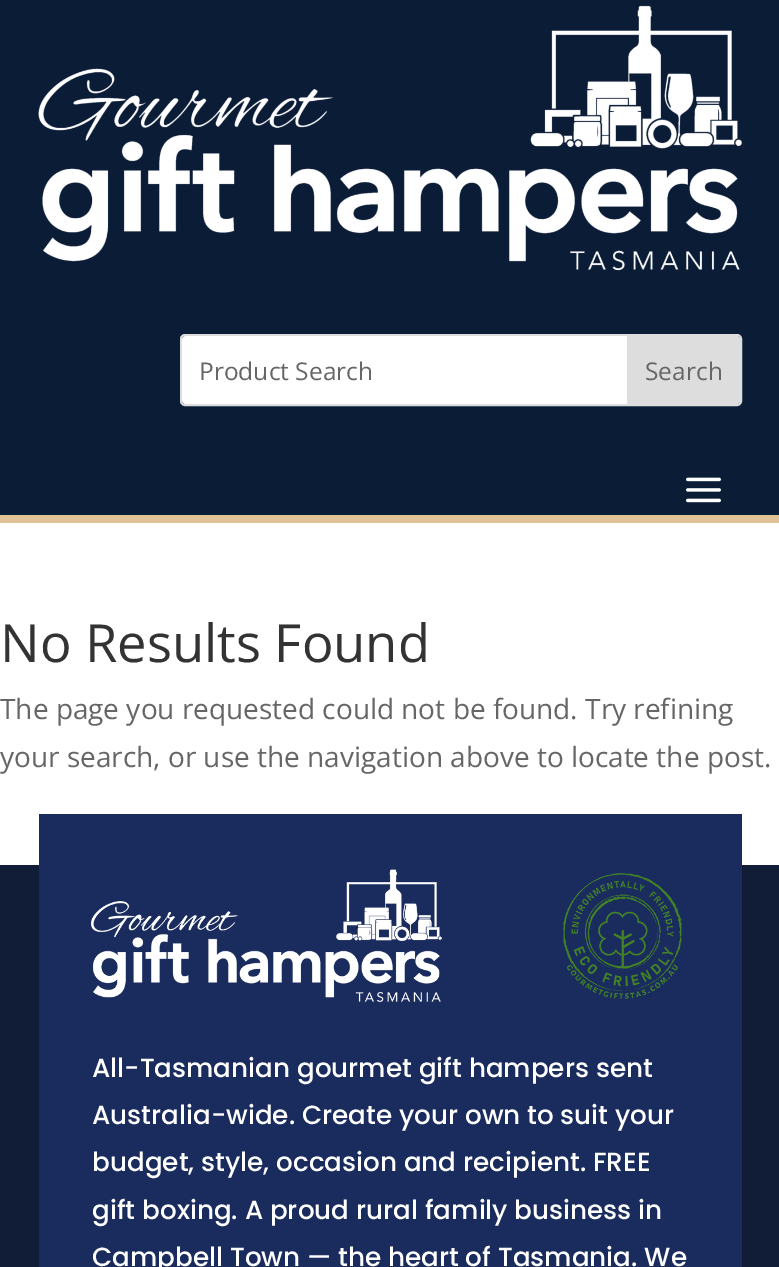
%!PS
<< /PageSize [779 1267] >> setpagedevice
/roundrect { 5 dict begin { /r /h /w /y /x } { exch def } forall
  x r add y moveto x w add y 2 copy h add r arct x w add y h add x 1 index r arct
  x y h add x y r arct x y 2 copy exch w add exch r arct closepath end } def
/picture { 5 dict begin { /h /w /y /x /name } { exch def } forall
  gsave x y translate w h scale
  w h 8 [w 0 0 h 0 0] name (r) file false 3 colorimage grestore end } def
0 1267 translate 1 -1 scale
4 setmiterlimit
1 setgray
0 0 779 1267 rectfill
0.043 0.11 0.216 setrgbcolor
0 0 779 515 rectfill
0.875 0.765 0.592 setrgbcolor
0 515 779 8 rectfill
(img1.rgb) 38 5 704 266 picture
0.867 setgray
2 setlinewidth
181 335 560 70 4 roundrect stroke
1 setgray
182 336 558 68 4 roundrect fill
/OpenSans-Regular [24.5 0 0 -24.5 0 0] selectfont
0.4 setgray
199 380 moveto (Product Search) show
0.867 setgray
newpath 627 336 moveto 736 336 lineto 738 336 740 338 740 340 curveto 740 400 lineto 740 402 738 404 736 404 curveto 627 404 lineto closepath fill
0.4 setgray
645 380 moveto (Search) show
(img2.rgb) 686 477 35 26 picture
/OpenSans-Regular [52.5 0 0 -52.5 0 0] selectfont
0.2 setgray
0 662 moveto (No Results Found) show
/OpenSans-Regular [28 0 0 -28 0 0] selectfont
0.4 setgray
0 719 moveto (The page you requested could not be found. Try refining) show
0 767 moveto (your search, or use the navigation above to locate the post.) show
0.067 0.11 0.212 setrgbcolor
0 865 779 402 rectfill
0.102 0.173 0.369 setrgbcolor
39 814 703 453 rectfill
(img3.rgb) 91 869 591 133 picture
/Poppins-Medium [26.25 0 0 -26.25 0 0] selectfont
1 setgray
92 1077 moveto (All-Tasmanian gourmet gift hampers sent) show
92 1124 moveto (Australia-wide. Create your own to suit your) show
92 1171 moveto (budget, style, occasion and recipient. FREE) show
92 1219 moveto (gift boxing. A proud rural family business in) show
92 1266 moveto (Campbell Town — the heart of Tasmania. We) show
showpage
